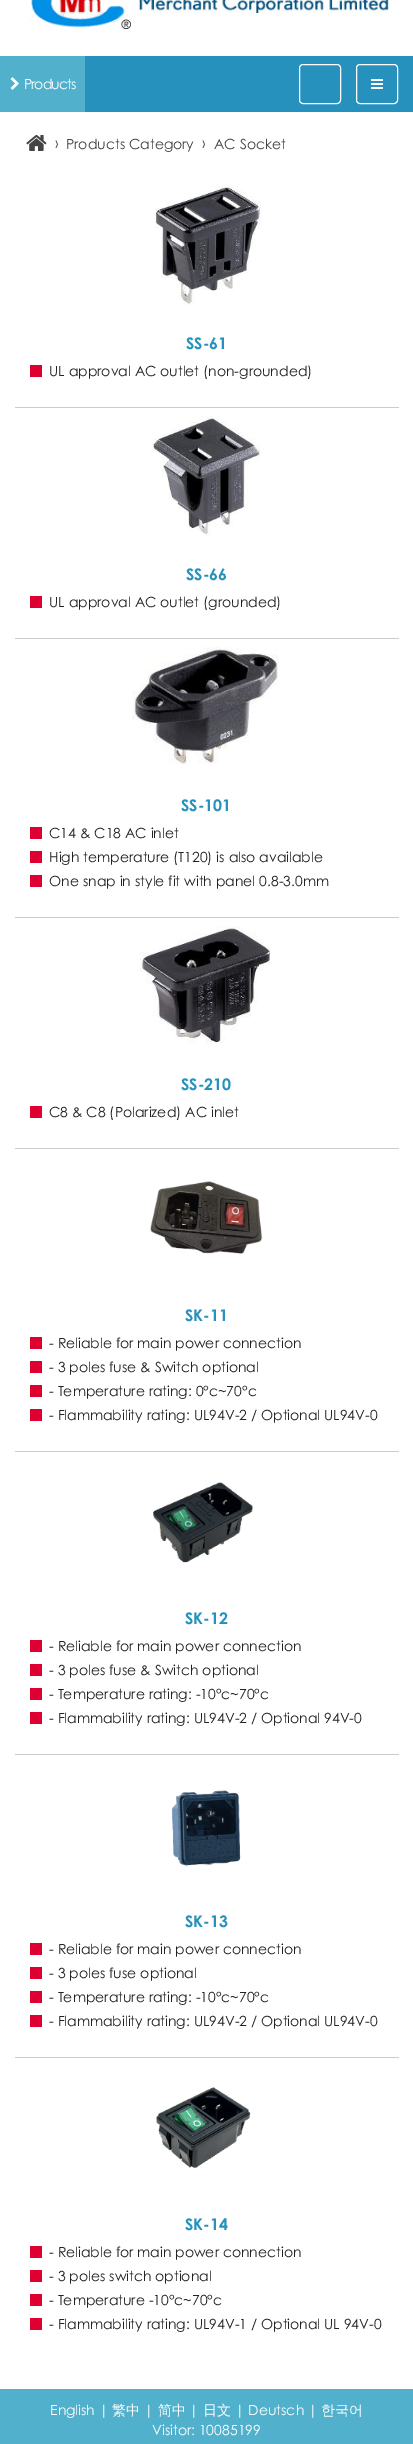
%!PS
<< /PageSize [413 2444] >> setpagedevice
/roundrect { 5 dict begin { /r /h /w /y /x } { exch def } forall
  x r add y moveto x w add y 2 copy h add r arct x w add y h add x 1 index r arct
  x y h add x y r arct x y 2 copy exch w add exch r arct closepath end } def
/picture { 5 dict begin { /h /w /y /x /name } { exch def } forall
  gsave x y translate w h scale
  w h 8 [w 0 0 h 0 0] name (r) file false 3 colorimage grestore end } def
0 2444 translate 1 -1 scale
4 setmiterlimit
1 setgray
0 0 413 2444 rectfill
(img1.rgb) 28 0 361 29 picture
0.149 0.569 0.737 setrgbcolor
85 56 328 56 rectfill
0.318 0.694 0.804 setrgbcolor
0 56 85 56 rectfill
(img2.rgb) 10 77 9 13 picture
/CenturyGothic-Regular [14 0 0 -14 0 0] selectfont
1 setgray
24 89 moveto -1 0 (Products) ashow
299.5 64.5 41 39 3.5 roundrect stroke
356.5 64.5 41 39 3.5 roundrect stroke
(img3.rgb) 371 79 12 10 picture
(img4.rgb) 26 135 21 16 picture
0.267 setgray
55 148 moveto (›) show
66 149 moveto (Products Category) show
202 148 moveto (›) show
214 149 moveto (AC Socket) show
(img5.rgb) 155 185 106 120 picture
/CenturyGothic-Bold [16 0 0 -16 0 0] selectfont
0.149 0.569 0.737 setrgbcolor
186 349 moveto (SS-61) show
0.867 0 0.192 setrgbcolor
30 365 12 12 rectfill
/CenturyGothic-Regular [14 0 0 -14 0 0] selectfont
0.133 setgray
49 376 moveto (UL approval AC outlet \(non-grounded\)) show
0.8 setgray
15 407 384 1 rectfill
(img6.rgb) 151 416 109 120 picture
/CenturyGothic-Bold [16 0 0 -16 0 0] selectfont
0.149 0.569 0.737 setrgbcolor
186 580 moveto (SS-66) show
0.867 0 0.192 setrgbcolor
30 596 12 12 rectfill
/CenturyGothic-Regular [14 0 0 -14 0 0] selectfont
0.133 setgray
49 607 moveto (UL approval AC outlet \(grounded\)) show
0.8 setgray
15 638 384 1 rectfill
(img7.rgb) 132 647 146 117 picture
/CenturyGothic-Bold [16 0 0 -16 0 0] selectfont
0.149 0.569 0.737 setrgbcolor
181 811 moveto (SS-101) show
0.867 0 0.192 setrgbcolor
30 827 12 12 rectfill
/CenturyGothic-Regular [14 0 0 -14 0 0] selectfont
0.133 setgray
49 838 moveto (C14 & C18 AC inlet) show
0.867 0 0.192 setrgbcolor
30 851 12 12 rectfill
0.133 setgray
49 862 moveto (High temperature \(T120\) is also available) show
0.867 0 0.192 setrgbcolor
30 875 12 12 rectfill
0.133 setgray
49 886 moveto (One snap in style fit with panel 0.8-3.0mm) show
0.8 setgray
15 917 384 1 rectfill
(img8.rgb) 140 926 131 118 picture
/CenturyGothic-Bold [16 0 0 -16 0 0] selectfont
0.149 0.569 0.737 setrgbcolor
181 1090 moveto (SS-210) show
0.867 0 0.192 setrgbcolor
30 1106 12 12 rectfill
/CenturyGothic-Regular [14 0 0 -14 0 0] selectfont
0.133 setgray
49 1117 moveto (C8 & C8 \(Polarized\) AC inlet) show
0.8 setgray
15 1148 384 1 rectfill
(img9.rgb) 150 1181 113 73 picture
/CenturyGothic-Bold [16 0 0 -16 0 0] selectfont
0.149 0.569 0.737 setrgbcolor
185 1321 moveto (SK-11) show
0.867 0 0.192 setrgbcolor
30 1337 12 12 rectfill
/CenturyGothic-Regular [14 0 0 -14 0 0] selectfont
0.133 setgray
49 1348 moveto (- Reliable for main power connection) show
0.867 0 0.192 setrgbcolor
30 1361 12 12 rectfill
0.133 setgray
49 1372 moveto (- 3 poles fuse & Switch optional) show
0.867 0 0.192 setrgbcolor
30 1385 12 12 rectfill
0.133 setgray
49 1396 moveto (- Temperature rating: 0°c~70°c) show
0.867 0 0.192 setrgbcolor
30 1409 12 12 rectfill
0.133 setgray
49 1420 moveto (- Flammability rating: UL94V-2 / Optional UL94V-0) show
0.8 setgray
15 1451 384 1 rectfill
(img10.rgb) 153 1482 100 81 picture
/CenturyGothic-Bold [16 0 0 -16 0 0] selectfont
0.149 0.569 0.737 setrgbcolor
185 1624 moveto (SK-12) show
0.867 0 0.192 setrgbcolor
30 1640 12 12 rectfill
/CenturyGothic-Regular [14 0 0 -14 0 0] selectfont
0.133 setgray
49 1651 moveto (- Reliable for main power connection) show
0.867 0 0.192 setrgbcolor
30 1664 12 12 rectfill
0.133 setgray
49 1675 moveto (- 3 poles fuse & Switch optional) show
0.867 0 0.192 setrgbcolor
30 1688 12 12 rectfill
0.133 setgray
49 1699 moveto (- Temperature rating: -10°c~70°c) show
0.867 0 0.192 setrgbcolor
30 1712 12 12 rectfill
0.133 setgray
49 1723 moveto (- Flammability rating: UL94V-2 / Optional 94V-0) show
0.8 setgray
15 1754 384 1 rectfill
(img11.rgb) 171 1790 70 76 picture
/CenturyGothic-Bold [16 0 0 -16 0 0] selectfont
0.149 0.569 0.737 setrgbcolor
185 1927 moveto (SK-13) show
0.867 0 0.192 setrgbcolor
30 1943 12 12 rectfill
/CenturyGothic-Regular [14 0 0 -14 0 0] selectfont
0.133 setgray
49 1954 moveto (- Reliable for main power connection) show
0.867 0 0.192 setrgbcolor
30 1967 12 12 rectfill
0.133 setgray
49 1978 moveto (- 3 poles fuse optional) show
0.867 0 0.192 setrgbcolor
30 1991 12 12 rectfill
0.133 setgray
49 2002 moveto (- Temperature rating: -10°c~70°c) show
0.867 0 0.192 setrgbcolor
30 2015 12 12 rectfill
0.133 setgray
49 2026 moveto (- Flammability rating: UL94V-2 / Optional UL94V-0) show
0.8 setgray
15 2057 384 1 rectfill
(img12.rgb) 156 2087 95 81 picture
/CenturyGothic-Bold [16 0 0 -16 0 0] selectfont
0.149 0.569 0.737 setrgbcolor
185 2230 moveto (SK-14) show
0.867 0 0.192 setrgbcolor
30 2246 12 12 rectfill
/CenturyGothic-Regular [14 0 0 -14 0 0] selectfont
0.133 setgray
49 2257 moveto (- Reliable for main power connection) show
0.867 0 0.192 setrgbcolor
30 2270 12 12 rectfill
0.133 setgray
49 2281 moveto (- 3 poles switch optional) show
0.867 0 0.192 setrgbcolor
30 2294 12 12 rectfill
0.133 setgray
49 2305 moveto (- Temperature -10°c~70°c) show
0.867 0 0.192 setrgbcolor
30 2318 12 12 rectfill
0.133 setgray
49 2329 moveto (- Flammability rating: UL94V-1 / Optional UL 94V-0) show
0.318 0.694 0.804 setrgbcolor
0 2389 413 55 rectfill
1 setgray
50 2415 moveto (English |) show
/WenQuanYiZenHei-Medium [14 0 0 -14 0 0] selectfont
112 2415 moveto (繁中) show
/CenturyGothic-Regular [14 0 0 -14 0 0] selectfont
144 2415 moveto (|) show
/WenQuanYiZenHei-Medium [14 0 0 -14 0 0] selectfont
158 2415 moveto (简中) show
/CenturyGothic-Regular [14 0 0 -14 0 0] selectfont
189 2415 moveto (|) show
/WenQuanYiZenHei-Medium [14 0 0 -14 0 0] selectfont
203 2415 moveto (日文) show
/CenturyGothic-Regular [14 0 0 -14 0 0] selectfont
235 2415 moveto (| Deutsch |) show
/WenQuanYiZenHei-Medium [14 0 0 -14 0 0] selectfont
321 2415 moveto (한국어) show
/CenturyGothic-Regular [14 0 0 -14 0 0] selectfont
152 2435 moveto (Visitor: 10085199) show
showpage
